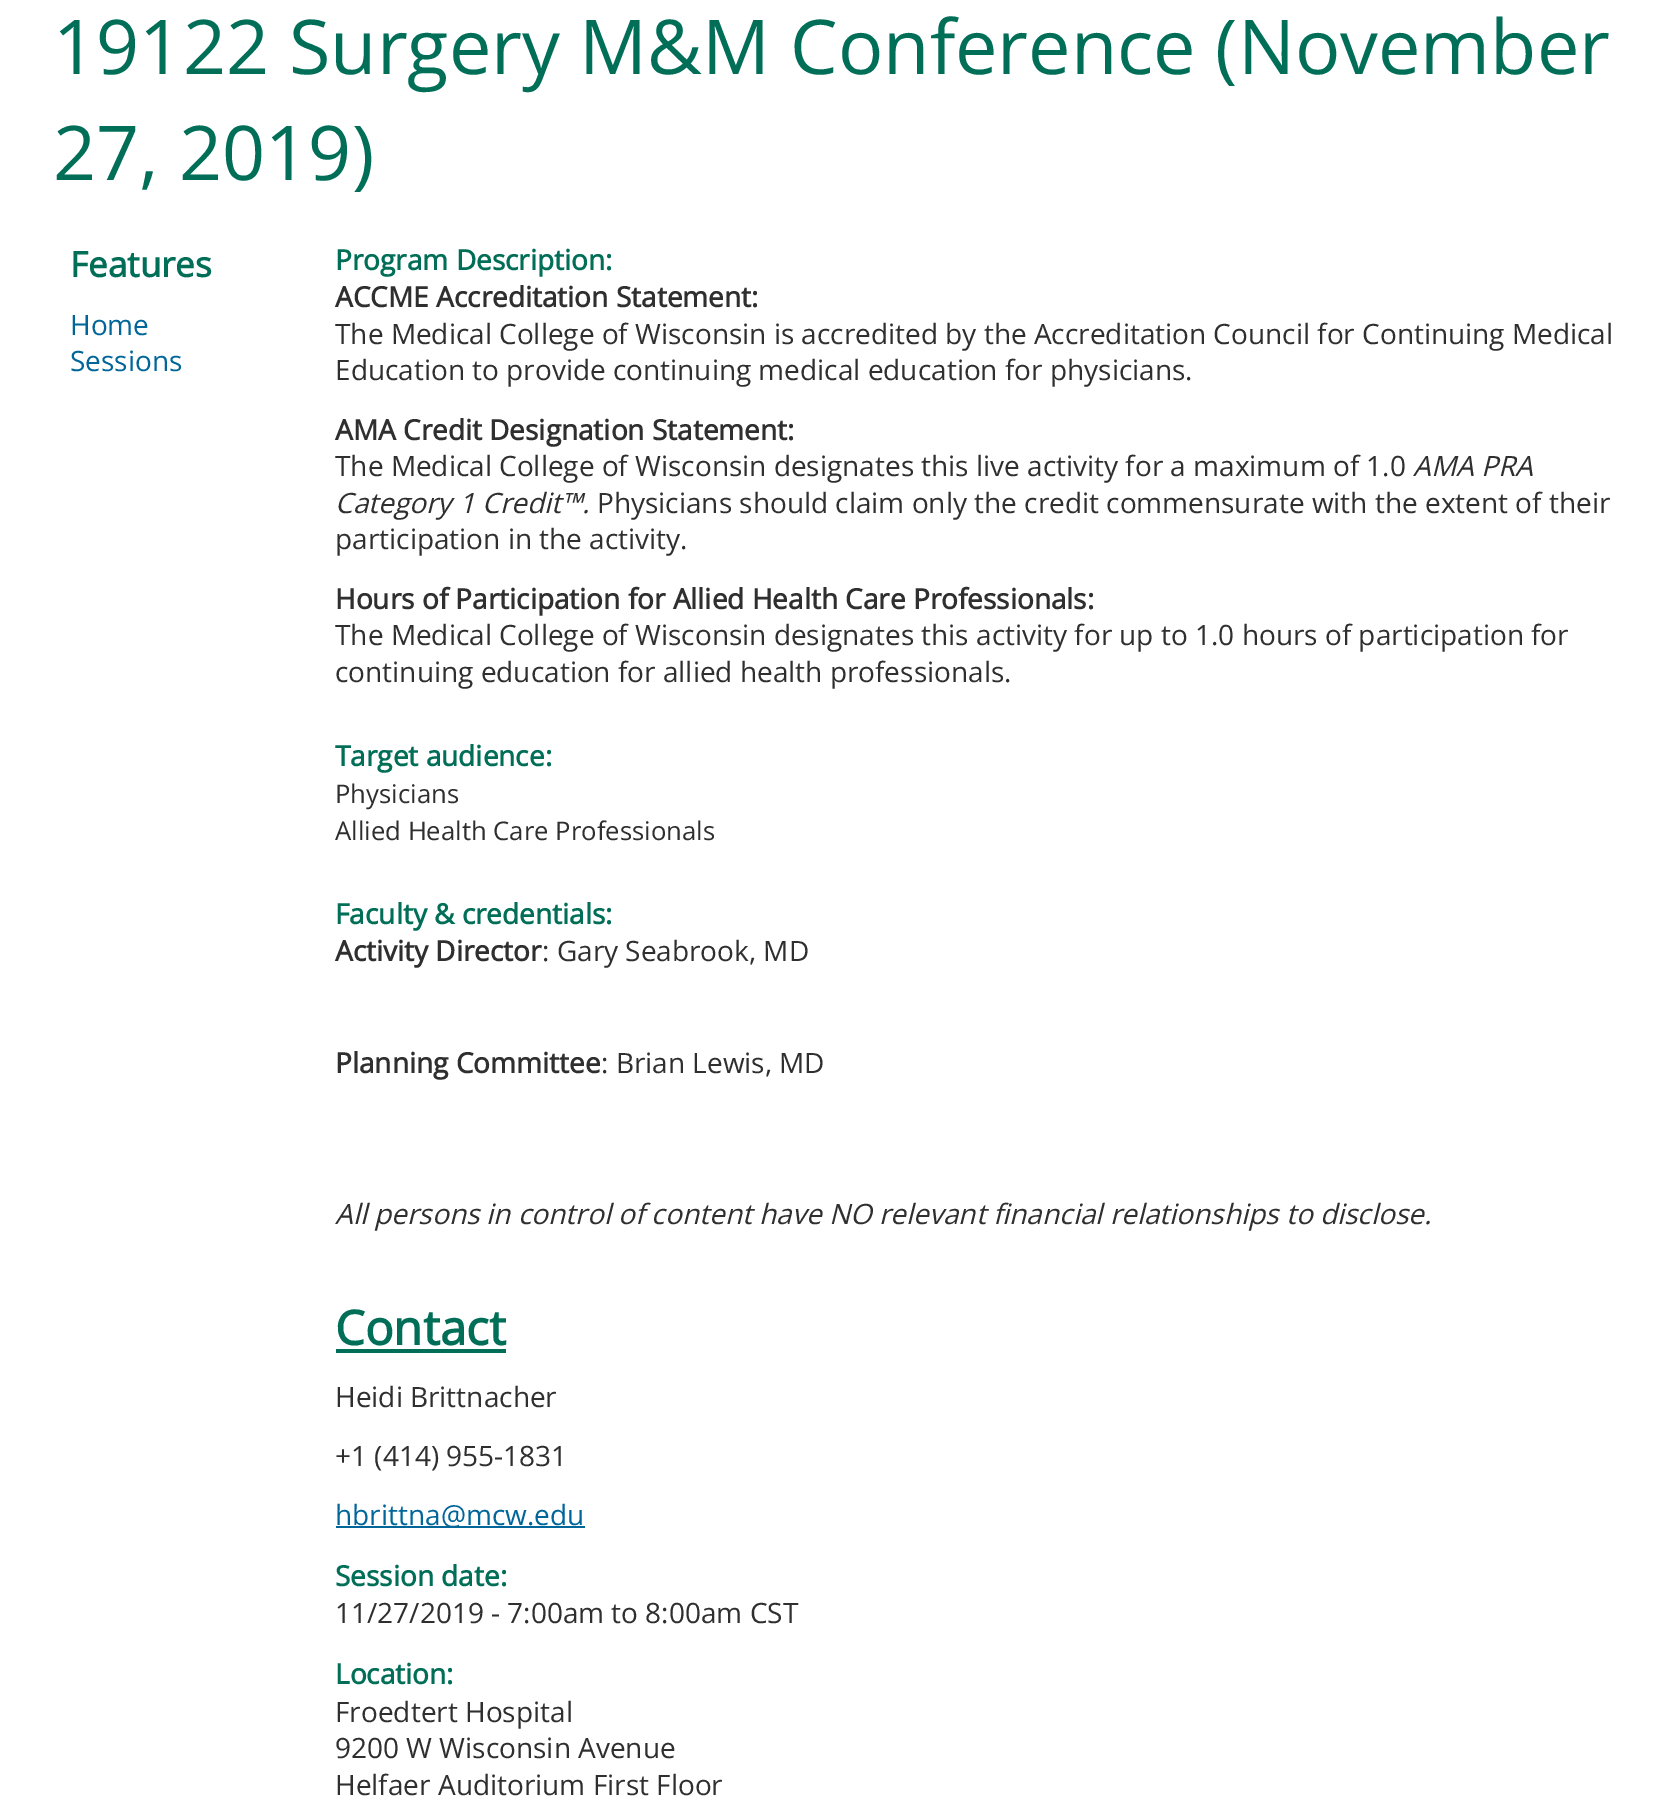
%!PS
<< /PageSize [1675 1805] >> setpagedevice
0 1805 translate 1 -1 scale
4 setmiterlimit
1 setgray
0 0 1675 1805 rectfill
/OpenSans-Regular [75.6 0 0 -75.6 0 0] selectfont
0.004 0.431 0.341 setrgbcolor
53 74 moveto (19122 Surgery M&M Conference \(November) show
53 180 moveto (27, 2019\)) show
/OpenSans-Bold [35 0 0 -35 0 0] selectfont
70 277 moveto (Features) show
/OpenSans-Regular [28 0 0 -28 0 0] selectfont
0 0.4 0.6 setrgbcolor
70 335 moveto (Home) show
70 371 moveto (Sessions) show
/OpenSans-Bold [28 0 0 -28 0 0] selectfont
0.004 0.431 0.341 setrgbcolor
335 270 moveto (Program Description:) show
0.184 setgray
335 307 moveto (ACCME Accreditation Statement:) show
/OpenSans-Regular [28 0 0 -28 0 0] selectfont
335 344 moveto (The Medical College of Wisconsin is accredited by the Accreditation Council for Continuing Medical) show
335 380 moveto (Education to provide continuing medical education for physicians.) show
/OpenSans-Bold [28 0 0 -28 0 0] selectfont
335 440 moveto (AMA Credit Designation Statement:) show
/OpenSans-Regular [28 0 0 -28 0 0] selectfont
335 476 moveto (The Medical College of Wisconsin designates this live activity for a maximum of 1.0) show
/OpenSans-Italic [28 0 0 -28 0 0] selectfont
1413 476 moveto (AMA PRA) show
335 513 moveto (Category 1 Credit™.) show
/OpenSans-Regular [28 0 0 -28 0 0] selectfont
597 513 moveto (Physicians should claim only the credit commensurate with the extent of their) show
335 549 moveto (participation in the activity.) show
/OpenSans-Bold [28 0 0 -28 0 0] selectfont
335 609 moveto (Hours of Participation for Allied Health Care Professionals:) show
/OpenSans-Regular [28 0 0 -28 0 0] selectfont
335 645 moveto (The Medical College of Wisconsin designates this activity for up to 1.0 hours of participation for) show
335 682 moveto (continuing education for allied health professionals.) show
/OpenSans-Bold [28 0 0 -28 0 0] selectfont
0.004 0.431 0.341 setrgbcolor
335 766 moveto (Target audience:) show
/OpenSans-Regular [25.7 0 0 -25.7 0 0] selectfont
0.184 setgray
335 803 moveto (Physicians) show
335 840 moveto (Allied Health Care Professionals) show
/OpenSans-Bold [28 0 0 -28 0 0] selectfont
0.004 0.431 0.341 setrgbcolor
335 924 moveto (Faculty & credentials:) show
0.184 setgray
335 961 moveto (Activity Director) show
/OpenSans-Regular [28 0 0 -28 0 0] selectfont
542 961 moveto (: Gary Seabrook, MD) show
/OpenSans-Bold [28 0 0 -28 0 0] selectfont
335 1073 moveto (Planning Committee) show
/OpenSans-Regular [28 0 0 -28 0 0] selectfont
601 1073 moveto (: Brian Lewis, MD) show
/OpenSans-Italic [28 0 0 -28 0 0] selectfont
335 1224 moveto (All persons in control of content have NO relevant financial relationships to disclose.) show
/OpenSans-Bold [47.5 0 0 -47.5 0 0] selectfont
0.004 0.431 0.341 setrgbcolor
335 1345 moveto (Contact) show
336 1349 170 4 rectfill
/OpenSans-Regular [28 0 0 -28 0 0] selectfont
0.184 setgray
335 1407 moveto (Heidi Brittnacher) show
335 1466 moveto (+1 \(414\) 955-1831) show
0 0.4 0.6 setrgbcolor
336 1526 249 2 rectfill
335 1525 moveto (hbrittna@mcw.edu) show
/OpenSans-Bold [28 0 0 -28 0 0] selectfont
0.004 0.431 0.341 setrgbcolor
335 1586 moveto (Session date:) show
/OpenSans-Regular [28 0 0 -28 0 0] selectfont
0.184 setgray
335 1623 moveto (11/27/2019 - 7:00am to 8:00am CST) show
/OpenSans-Bold [28 0 0 -28 0 0] selectfont
0.004 0.431 0.341 setrgbcolor
335 1684 moveto (Location:) show
/OpenSans-Regular [28 0 0 -28 0 0] selectfont
0.184 setgray
335 1722 moveto (Froedtert Hospital) show
335 1758 moveto (9200 W Wisconsin Avenue) show
335 1795 moveto (Helfaer Auditorium First Floor) show
showpage
